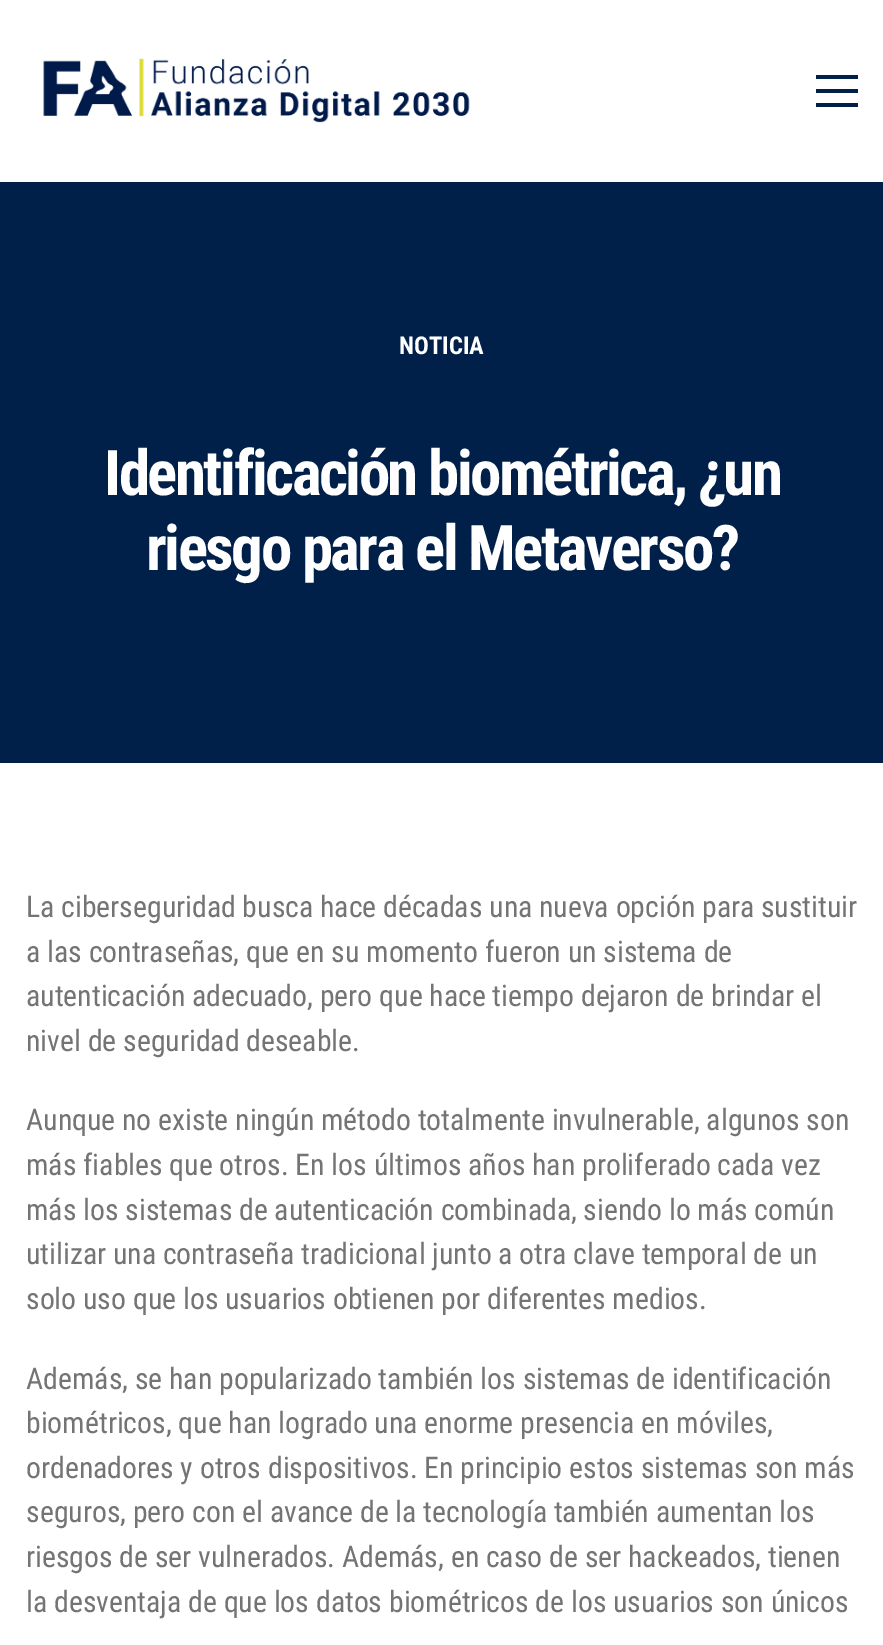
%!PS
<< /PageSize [883 1645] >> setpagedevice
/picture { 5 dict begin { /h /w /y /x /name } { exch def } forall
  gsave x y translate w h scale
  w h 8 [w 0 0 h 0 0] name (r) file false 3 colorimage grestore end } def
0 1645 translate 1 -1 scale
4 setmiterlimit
1 setgray
0 0 883 1645 rectfill
(img1.rgb) 43 58 427 65 picture
0 0.125 0.29 setrgbcolor
816 89 42 4 rectfill
816 75 42 4 rectfill
816 103 42 4 rectfill
0 182 883 581 rectfill
/RobotoCondensed-Bold [24.5 0 0 -24.5 0 0] selectfont
1 setgray
399 354 moveto (NOTICIA) show
/RobotoCondensed-Bold [63 0 0 -63 0 0] selectfont
104 495 moveto -2.5 0 (Identificación biométrica, ¿un) ashow
146 570 moveto -2.5 0 (riesgo para el Metaverso?) ashow
/RobotoCondensed-Regular [29.75 0 0 -29.75 0 0] selectfont
0.455 setgray
26 917 moveto (La ciberseguridad busca hace décadas una nueva opción para sustituir) show
26 962 moveto (a las contraseñas, que en su momento fueron un sistema de) show
26 1006 moveto (autenticación adecuado, pero que hace tiempo dejaron de brindar el) show
26 1051 moveto (nivel de seguridad deseable.) show
26 1130 moveto (Aunque no existe ningún método totalmente invulnerable, algunos son) show
26 1175 moveto (más fiables que otros. En los últimos años han proliferado cada vez) show
26 1220 moveto (más los sistemas de autenticación combinada, siendo lo más común) show
26 1264 moveto (utilizar una contraseña tradicional junto a otra clave temporal de un) show
26 1309 moveto (solo uso que los usuarios obtienen por diferentes medios.) show
26 1389 moveto (Además, se han popularizado también los sistemas de identificación) show
26 1433 moveto (biométricos, que han logrado una enorme presencia en móviles,) show
26 1478 moveto (ordenadores y otros dispositivos. En principio estos sistemas son más) show
26 1522 moveto (seguros, pero con el avance de la tecnología también aumentan los) show
26 1567 moveto (riesgos de ser vulnerados. Además, en caso de ser hackeados, tienen) show
26 1612 moveto (la desventaja de que los datos biométricos de los usuarios son únicos) show
showpage
